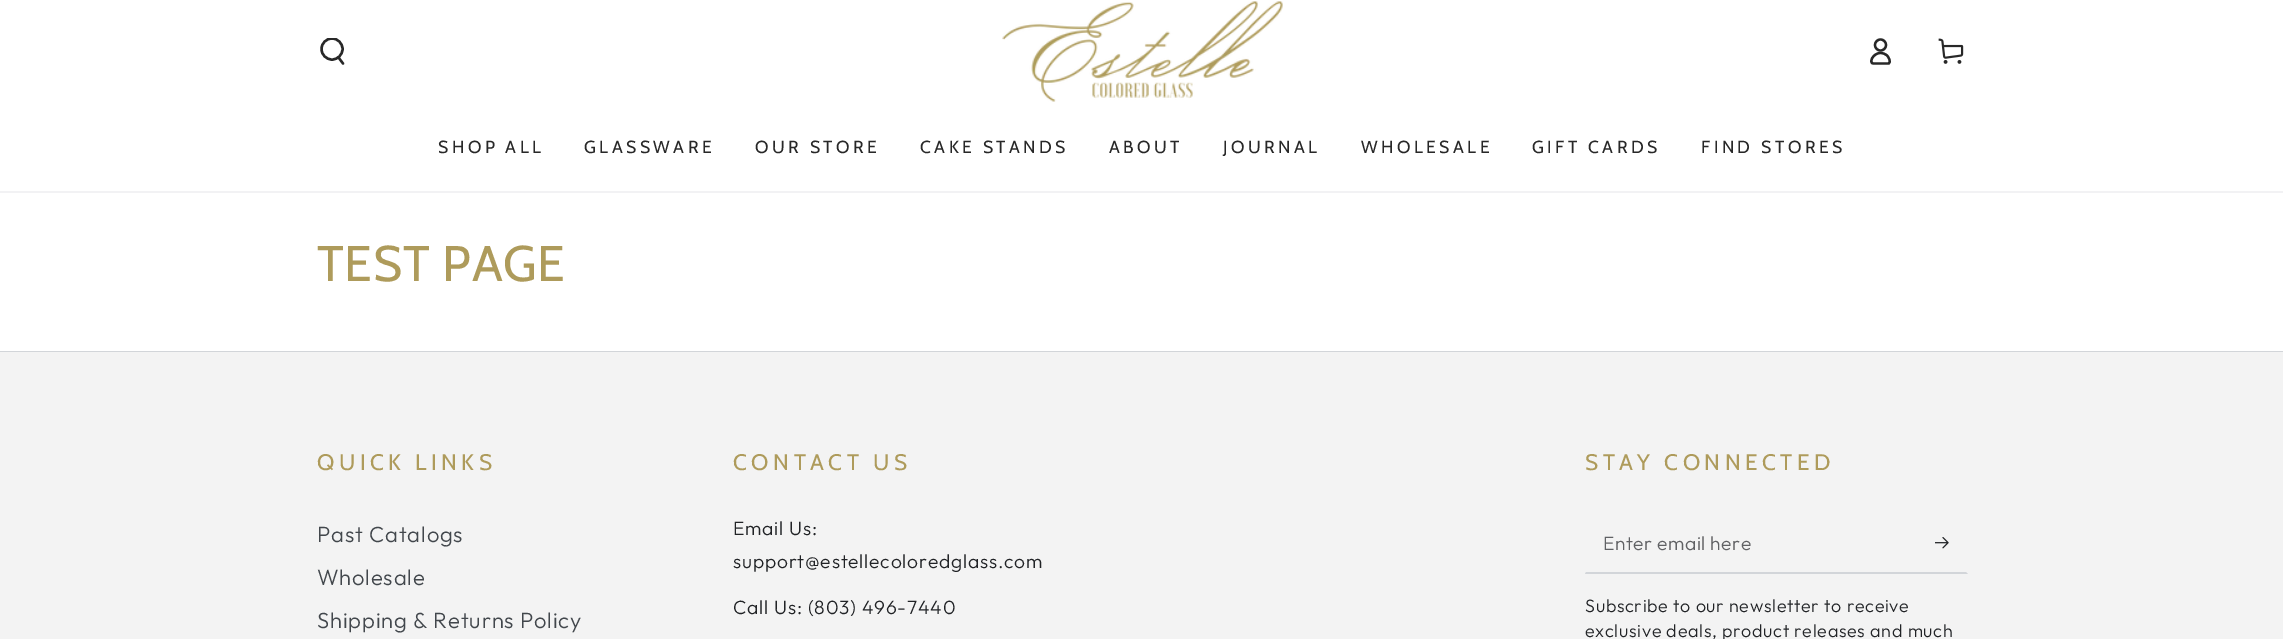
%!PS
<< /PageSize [2283 639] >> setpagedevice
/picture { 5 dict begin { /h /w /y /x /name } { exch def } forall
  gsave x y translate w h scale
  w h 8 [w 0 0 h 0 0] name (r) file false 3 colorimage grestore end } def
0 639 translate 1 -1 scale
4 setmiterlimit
1 setgray
0 0 2283 639 rectfill
0.949 0.949 0.957 setrgbcolor
newpath 0 191 moveto 0 193 lineto 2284 193 lineto 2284 -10 lineto 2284 191 lineto closepath fill
gsave
319 38 27 27 rectclip
0.157 setgray
2.4 setlinewidth
newpath 332 49 10.5 0 360 arc closepath stroke
grestore
0.157 setgray
2.4 setlinewidth
1 setlinecap
newpath 338.5 57.5 moveto 343 63.5 lineto stroke
(img1.rgb) 1002 1 281 101 picture
2.3 setlinewidth
0 setlinecap
newpath 1880.5 53 moveto 1872.5 53 1868.5 63.5 1873.5 63.5 curveto 1888.5 63.5 lineto 1891.5 62 1888.5 57 1887 55.5 curveto 1885.5 54 1883 53 1880.5 53 curveto closepath stroke
newpath 1880.5 45 5.5 0 360 arc closepath stroke
(img2.rgb) 1938 38 26 26 picture
/Cabin-Regular [17.5 0 0 -17.5 0 0] selectfont
438 153 moveto 3.5 0 (SHOP ALL) ashow
584 153 moveto 3.5 0 (GLASSWARE) ashow
755 153 moveto 3.5 0 (OUR STORE) ashow
920 153 moveto 3.5 0 (CAKE STANDS) ashow
1109 153 moveto 3.5 0 (ABOUT) ashow
1223 153 moveto 3.5 0 (JOURNAL) ashow
1361 153 moveto 3.5 0 (WHOLESALE) ashow
1532 153 moveto 3.5 0 (GIFT CARDS) ashow
1701 153 moveto 3.5 0 (FIND STORES) ashow
/Cabin-Regular [50 0 0 -50 0 0] selectfont
0.682 0.608 0.357 setrgbcolor
317 281 moveto 0.75 0 (TEST PAGE) ashow
0.953 setgray
0 352 2283 287 rectfill
0.824 0.835 0.851 setrgbcolor
0 351 2283 1 rectfill
/Cabin-Regular [22.5 0 0 -22.5 0 0] selectfont
0.682 0.608 0.357 setrgbcolor
317 470 moveto 4.5 0 (QUICK LINKS) ashow
/Outfit-Light [22 0 0 -22 0 0] selectfont
0.259 0.278 0.298 setrgbcolor
317 542 moveto 0.8 0 (Past Catalogs) ashow
317 585 moveto 0.8 0 (Wholesale) ashow
317 628 moveto 0.8 0 (Shipping & Returns Policy) ashow
/Cabin-Regular [22.5 0 0 -22.5 0 0] selectfont
0.682 0.608 0.357 setrgbcolor
733 470 moveto 4.5 0 (CONTACT US) ashow
/Outfit-Light [19.25 0 0 -19.25 0 0] selectfont
0.129 0.137 0.149 setrgbcolor
733 535 moveto 0.8 0 (Email Us:) ashow
733 568 moveto 0.8 0 (support@estellecoloredglass.com) ashow
733 614 moveto 0.8 0 (Call Us: \(803\) 496-7440) ashow
/Cabin-Regular [22.5 0 0 -22.5 0 0] selectfont
0.682 0.608 0.357 setrgbcolor
1585 470 moveto 4.5 0 (STAY CONNECTED) ashow
0.824 0.835 0.851 setrgbcolor
newpath 1968 574 moveto 1585 574 lineto 1586 572 lineto 1966 572 lineto closepath fill
/Outfit-Light [19.25 0 0 -19.25 0 0] selectfont
0.376 0.38 0.392 setrgbcolor
1603 550 moveto 0.5 0 (Enter email here) ashow
(img3.rgb) 1935 537 14 12 picture
/Outfit-Light [17.9 0 0 -17.9 0 0] selectfont
0.129 0.137 0.149 setrgbcolor
1585 612 moveto 0.7 0 (Subscribe to our newsletter to receive) ashow
1585 637 moveto 0.7 0 (exclusive deals, product releases and much) ashow
showpage
